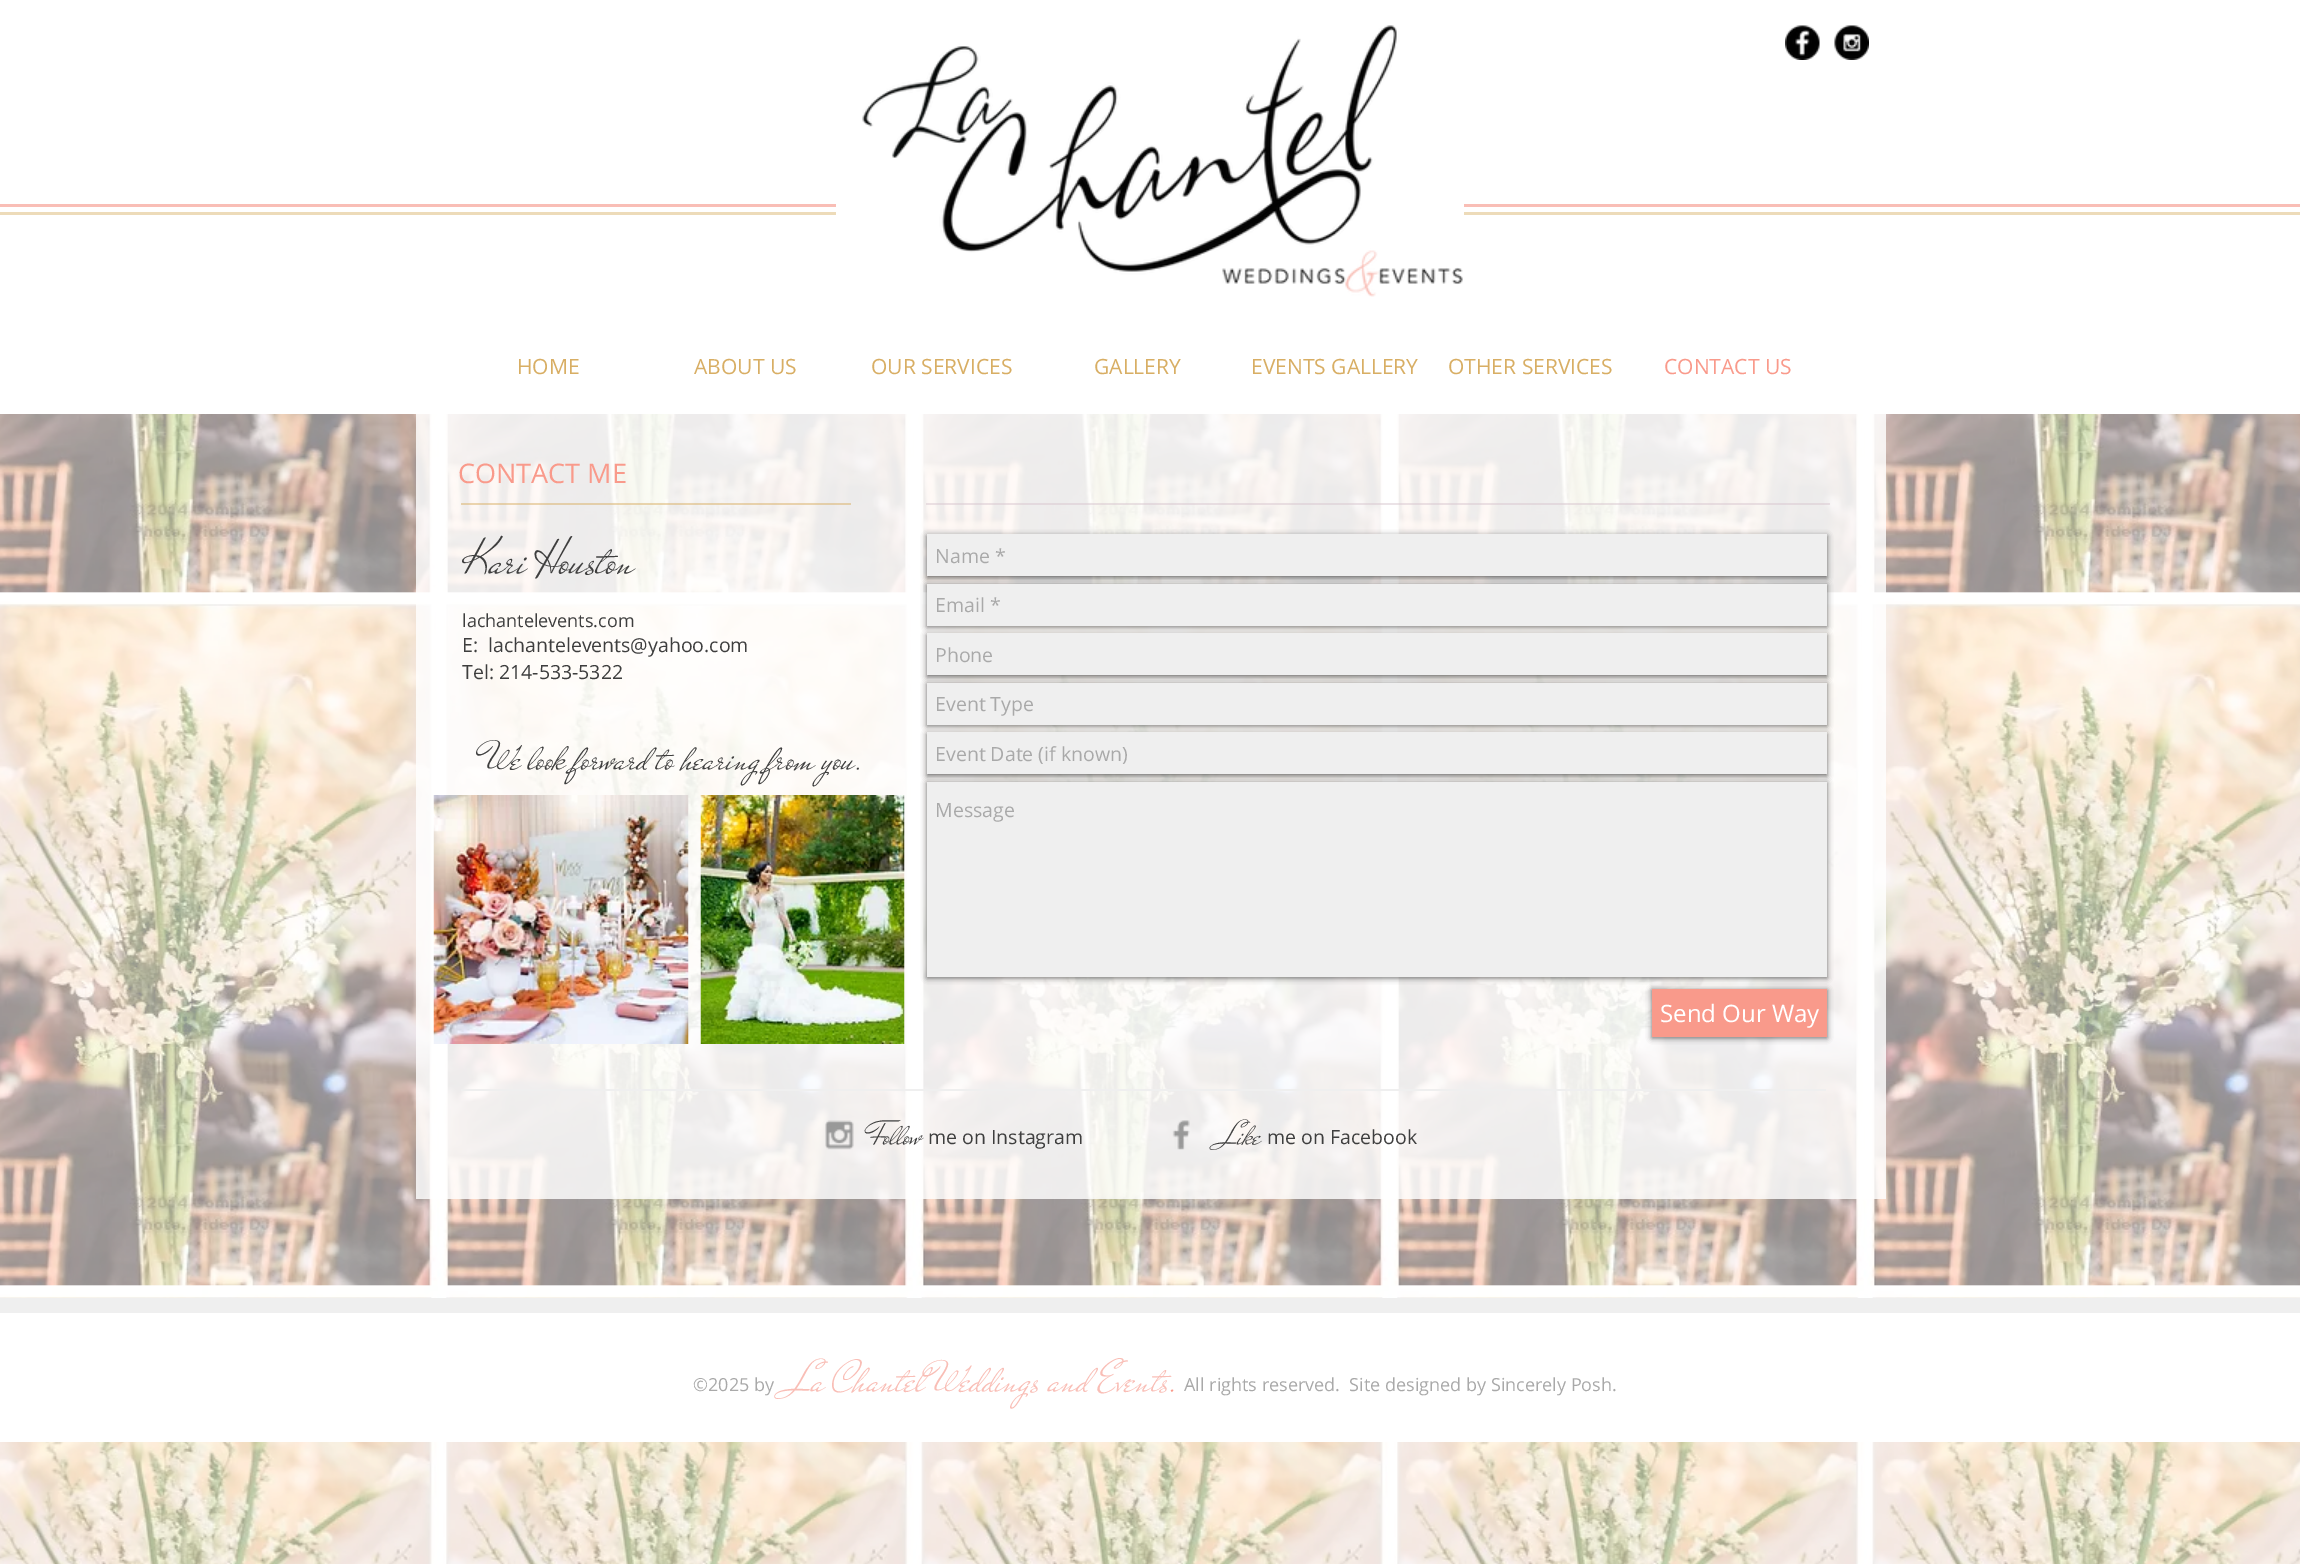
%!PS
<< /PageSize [2300 1564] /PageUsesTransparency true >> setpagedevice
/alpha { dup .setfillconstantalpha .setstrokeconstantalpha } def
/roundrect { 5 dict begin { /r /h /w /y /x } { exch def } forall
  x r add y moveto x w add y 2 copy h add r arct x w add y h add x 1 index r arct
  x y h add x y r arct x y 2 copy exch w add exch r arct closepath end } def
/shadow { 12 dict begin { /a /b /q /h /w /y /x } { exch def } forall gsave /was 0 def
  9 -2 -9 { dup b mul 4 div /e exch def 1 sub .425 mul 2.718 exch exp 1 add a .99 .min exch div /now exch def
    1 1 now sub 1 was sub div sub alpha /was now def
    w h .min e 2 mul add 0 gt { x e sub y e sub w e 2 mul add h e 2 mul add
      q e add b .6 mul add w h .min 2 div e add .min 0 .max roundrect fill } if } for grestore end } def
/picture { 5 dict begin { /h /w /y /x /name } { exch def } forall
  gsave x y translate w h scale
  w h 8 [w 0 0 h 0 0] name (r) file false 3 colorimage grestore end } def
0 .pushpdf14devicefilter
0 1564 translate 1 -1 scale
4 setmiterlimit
1 setgray
0 0 2300 1564 rectfill
0.976 0.745 0.714 setrgbcolor
0 204 2300 3 rectfill
0.929 0.859 0.725 setrgbcolor
0 212 2300 3 rectfill
1 setgray
836 204 628 11 rectfill
(img1.rgb) 862 25 601 272 picture
(img2.rgb) 1785 25 35 35 picture
(img3.rgb) 1834 25 35 35 picture
/OpenSans-Regular [21 0 0 -21 0 0] selectfont
0.847 0.682 0.392 setrgbcolor
517 374 moveto (HOME) show
694 374 moveto (ABOUT US) show
871 374 moveto (OUR SERVICES) show
1094 374 moveto (GALLERY) show
1251 374 moveto (EVENTS GALLERY) show
1448 374 moveto (OTHER SERVICES) show
0.976 0.604 0.545 setrgbcolor
1664 374 moveto (CONTACT US) show
(img8.rgb) 0 414 2300 1150 picture
0.82 alpha
1 setgray
416 414 1470 785 rectfill
/OpenSans-Regular [27 0 0 -27 0 0] selectfont
1 alpha
0.976 0.604 0.545 setrgbcolor
458 483 moveto (CONTACT ME) show
0.49 alpha
0.847 0.682 0.392 setrgbcolor
461 503 390 2 rectfill
0.843 0.773 0.808 setrgbcolor
926 503 904 2 rectfill
/MrDeHaviland-Regular [51 0 0 -51 0 0] selectfont
1 alpha
0.243 setgray
462 573 moveto (Kari Houston) show
/OpenSans-Regular [18 0 0 -18 0 0] selectfont
462 627 moveto (lachantelevents.com) show
/OpenSans-Regular [19.5 0 0 -19.5 0 0] selectfont
462 652 moveto (E:) show
488 652 moveto (lachantelevents@yahoo.com) show
462 679 moveto (Tel: 214-533-5322) show
0 setgray
927 536 900 42 0 3 0.6 shadow
0.937 setgray
927 534 900 42 rectfill
0.663 setgray
935 563 moveto (Name *) show
0 setgray
927 585 900 42 0 3 0.6 shadow
0.937 setgray
927 584 900 42 rectfill
0.663 setgray
935 612 moveto (Email *) show
0 setgray
927 635 900 42 0 3 0.6 shadow
0.937 setgray
927 633 900 42 rectfill
0.663 setgray
935 662 moveto (Phone) show
0 setgray
927 684 900 42 0 3 0.6 shadow
0.937 setgray
927 683 900 42 rectfill
0.663 setgray
935 711 moveto (Event Type) show
0 setgray
927 734 900 42 0 3 0.6 shadow
0.937 setgray
927 732 900 42 rectfill
0.663 setgray
935 761 moveto (Event Date \(if known\)) show
0 setgray
927 783 900 195 0 3 0.6 shadow
0.937 setgray
927 782 900 195 rectfill
0.663 setgray
935 817 moveto (Message) show
0 setgray
1652 990 175 48 0 3 0.6 shadow
0.976 0.604 0.545 setrgbcolor
1652 989 175 48 rectfill
/OpenSans-Regular [24 0 0 -24 0 0] selectfont
1 setgray
1660 1022 moveto (Send Our Way) show
/MrDeHaviland-Regular [42 0 0 -42 0 0] selectfont
0.243 setgray
485 769 moveto (We look forward to hearing from you.) show
(img4.rgb) 433 795 256 249 picture
(img5.rgb) 700 795 205 249 picture
0.937 setgray
461 1089 1365 2 rectfill
(img6.rgb) 825 1120 29 30 picture
/MrDeHaviland-Regular [34 0 0 -34 0 0] selectfont
0.243 setgray
869 1144 moveto (Follow) show
/OpenSans-Regular [19.5 0 0 -19.5 0 0] selectfont
928 1144 moveto (me on Instagram) show
(img7.rgb) 1172 1120 18 30 picture
/MrDeHaviland-Regular [34 0 0 -34 0 0] selectfont
1220 1144 moveto (Like) show
/OpenSans-Regular [19.5 0 0 -19.5 0 0] selectfont
1267 1144 moveto (me on Facebook) show
1 setgray
0 1313 2300 129 rectfill
0.937 setgray
0 1298 2300 15 rectfill
/OpenSans-Regular [18 0 0 -18 0 0] selectfont
0.663 setgray
693 1391 moveto (©2025 by) show
/MrDeHaviland-Regular [45 0 0 -45 0 0] selectfont
0.976 0.745 0.714 setrgbcolor
788 1391 moveto (La Chantel Weddings and Events) show
0.976 0.604 0.545 setrgbcolor
1169 1391 moveto (.) show
/OpenSans-Regular [18 0 0 -18 0 0] selectfont
0.663 setgray
1184 1391 moveto (All rights reserved.  Site designed by Sincerely Posh.) show
.poppdf14devicefilter showpage
